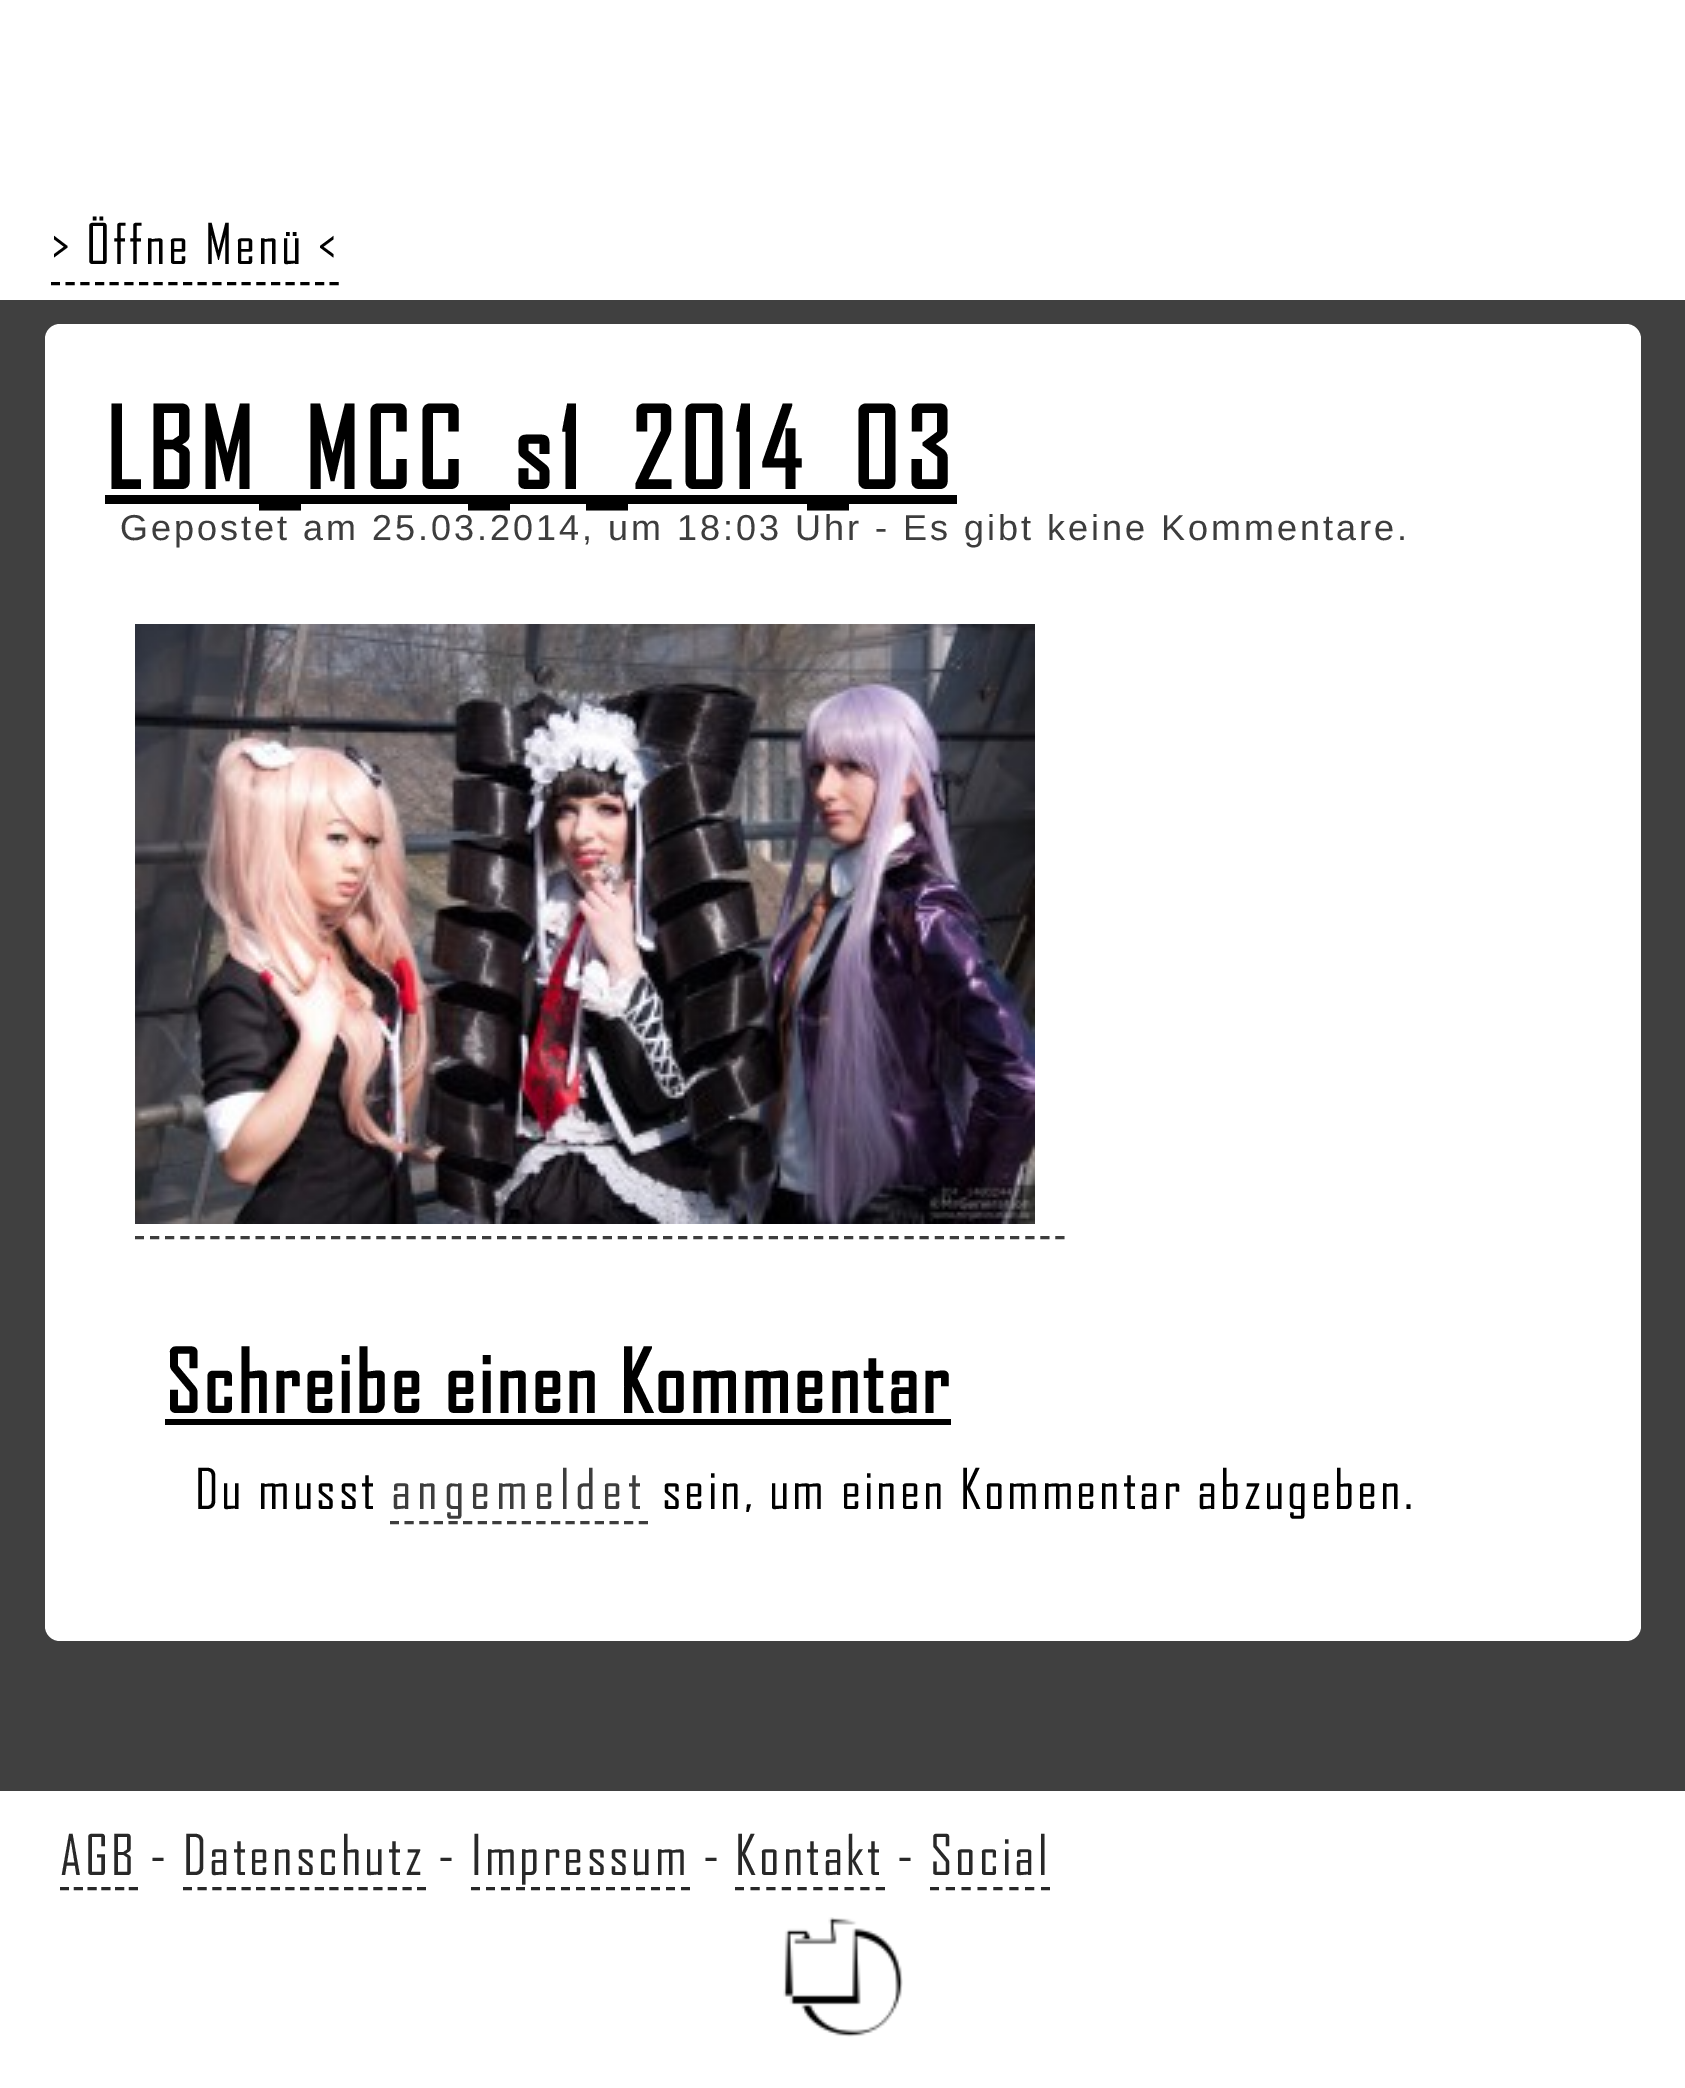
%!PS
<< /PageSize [1685 2088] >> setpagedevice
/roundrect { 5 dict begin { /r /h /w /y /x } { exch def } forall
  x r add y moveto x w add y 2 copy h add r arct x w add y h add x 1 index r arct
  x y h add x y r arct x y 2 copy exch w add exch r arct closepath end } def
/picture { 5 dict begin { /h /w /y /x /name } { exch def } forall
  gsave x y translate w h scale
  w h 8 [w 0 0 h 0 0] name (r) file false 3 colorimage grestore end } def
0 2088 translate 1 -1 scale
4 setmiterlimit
0.251 setgray
0 0 1685 2088 rectfill
1 setgray
0 0 1685 300 rectfill
/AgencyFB-Regular [54 0 0 -54 0 0] selectfont
0 setgray
51 264 moveto 3 0 (> Öffne Menü <) ashow
3 setlinewidth
[9 5.67] 0 setdash
newpath 51 283.5 moveto 339 283.5 lineto stroke
1 setgray
45 324 1596 1317 15 roundrect fill
0 setgray
105 495 852 9 rectfill
/AgencyFB-Bold [108 0 0 -108 0 0] selectfont
105 489 moveto 6 0 (LBM_MCC_s1_2014_03) ashow
/LiberationSans-Regular [36 0 0 -36 0 0] selectfont
0.239 setgray
120 540 moveto 3 0 (Gepostet am 25.03.2014, um 18:03 Uhr - Es gibt keine Kommentare.) ashow
(img1.rgb) 135 624 900 600 picture
[9 6.09] 0 setdash
newpath 135 1237.5 moveto 1065 1237.5 lineto stroke
/AgencyFB-Bold [84 0 0 -84 0 0] selectfont
0 setgray
165 1413 moveto 3 0 (Schreibe einen Kommentar) ashow
165 1419 786 6 rectfill
/AgencyFB-Regular [54 0 0 -54 0 0] selectfont
195 1509 moveto 3 0 (Du musst) ashow
0.239 setgray
391 1509 moveto 6 0 (angemeldet) ashow
[9 5.64] 0 setdash
newpath 390 1522.5 moveto 648 1522.5 lineto stroke
0 setgray
662 1509 moveto 3 0 (sein, um einen Kommentar abzugeben.) ashow
1 setgray
0 1791 1685 297 rectfill
0.157 setgray
60 1875 moveto 3 0 (AGB - Datenschutz - Impressum - Kontakt - Social) ashow
[9 4.8] 0 setdash
newpath 60 1888.5 moveto 138 1888.5 lineto stroke
[9 5.64] 0 setdash
newpath 183 1888.5 moveto 426 1888.5 lineto stroke
[9 6] 0 setdash
newpath 471 1888.5 moveto 690 1888.5 lineto stroke
[9 6.66] 0 setdash
newpath 735 1888.5 moveto 885 1888.5 lineto stroke
[9 6.87] 0 setdash
newpath 930 1888.5 moveto 1050 1888.5 lineto stroke
(img2.rgb) 783 1917 120 120 picture
showpage
